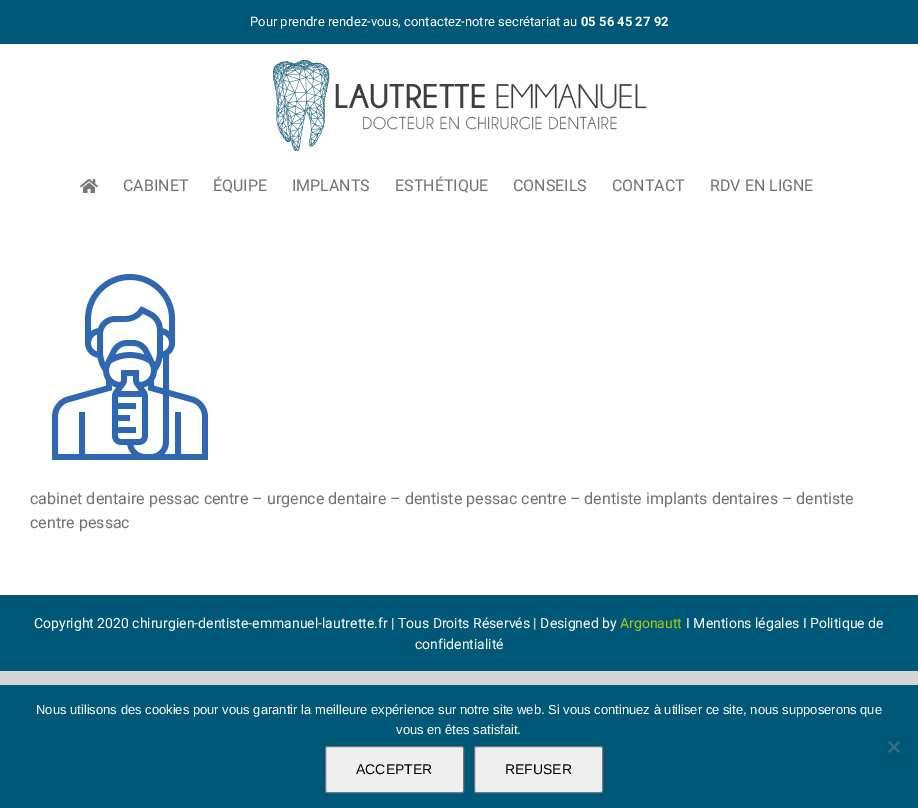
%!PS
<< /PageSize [918 808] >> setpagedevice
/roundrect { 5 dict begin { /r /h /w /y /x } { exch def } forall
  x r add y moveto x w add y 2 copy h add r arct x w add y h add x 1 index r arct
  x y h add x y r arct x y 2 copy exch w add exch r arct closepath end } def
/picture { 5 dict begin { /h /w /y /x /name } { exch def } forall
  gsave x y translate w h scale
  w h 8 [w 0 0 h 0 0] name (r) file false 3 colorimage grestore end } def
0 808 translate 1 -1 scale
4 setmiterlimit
0.843 0.839 0.839 setrgbcolor
0 0 918 808 rectfill
1 setgray
0 44 918 551 rectfill
0 0.345 0.471 setrgbcolor
0 0 918 44 rectfill
/Roboto-Regular [13 0 0 -13 0 0] selectfont
1 setgray
250 26 moveto (Pour prendre rendez-vous, contactez-notre secrétariat au) show
/Roboto-Bold [13 0 0 -13 0 0] selectfont
581 26 moveto (05 56 45 27 92) show
(img1.rgb) 273 60 374 91 picture
(img2.rgb) 80 179 18 14 picture
/Roboto-Regular [16 0 0 -16 0 0] selectfont
0.447 setgray
123 191 moveto (CABINET) show
213 191 moveto (ÉQUIPE) show
292 191 moveto (IMPLANTS) show
395 191 moveto (ESTHÉTIQUE) show
513 191 moveto (CONSEILS) show
612 191 moveto (CONTACT) show
710 191 moveto (RDV EN LIGNE) show
(img3.rgb) 52 274 156 186 picture
30 504 moveto (cabinet dentaire pessac centre – urgence dentaire – dentiste pessac centre – dentiste implants dentaires – dentiste) show
30 528 moveto (centre pessac) show
0 0.345 0.471 setrgbcolor
0 595 918 76 rectfill
/Roboto-Regular [14 0 0 -14 0 0] selectfont
1 setgray
34 628 moveto (Copyright 2020 chirurgien-dentiste-emmanuel-lautrette.fr | Tous Droits Réservés | Designed by) show
0.686 0.796 0.031 setrgbcolor
620 628 moveto (Argonautt) show
1 setgray
686 628 moveto (I Mentions légales I Politique de) show
415 649 moveto (confidentialité) show
0 0.345 0.471 setrgbcolor
0 685 918 123 rectfill
/LiberationSans-Regular [13 0 0 -13 0 0] selectfont
1 setgray
36 714 moveto (Nous utilisons des cookies pour vous garantir la meilleure expérience sur notre site web. Si vous continuez à utiliser ce site, nous supposerons que) show
396 734 moveto (vous en êtes satisfait.) show
0.251 0.424 0.486 setrgbcolor
newpath 898.5 741 moveto 900 742.5 lineto 889.5 753 lineto 888 751.5 lineto closepath fill
newpath 888 742.5 moveto 889.5 741 lineto 900 751.5 lineto 898.5 753 lineto closepath fill
0.937 setgray
325.5 746.5 138 46 1.5 roundrect gsave fill grestore
0.463 setgray
stroke
/LiberationSans-Regular [14 0 0 -14 0 0] selectfont
0 setgray
356 774 moveto (ACCEPTER) show
0.937 setgray
474.5 746.5 128 46 1.5 roundrect gsave fill grestore
0.463 setgray
stroke
0 setgray
505 774 moveto (REFUSER) show
showpage
